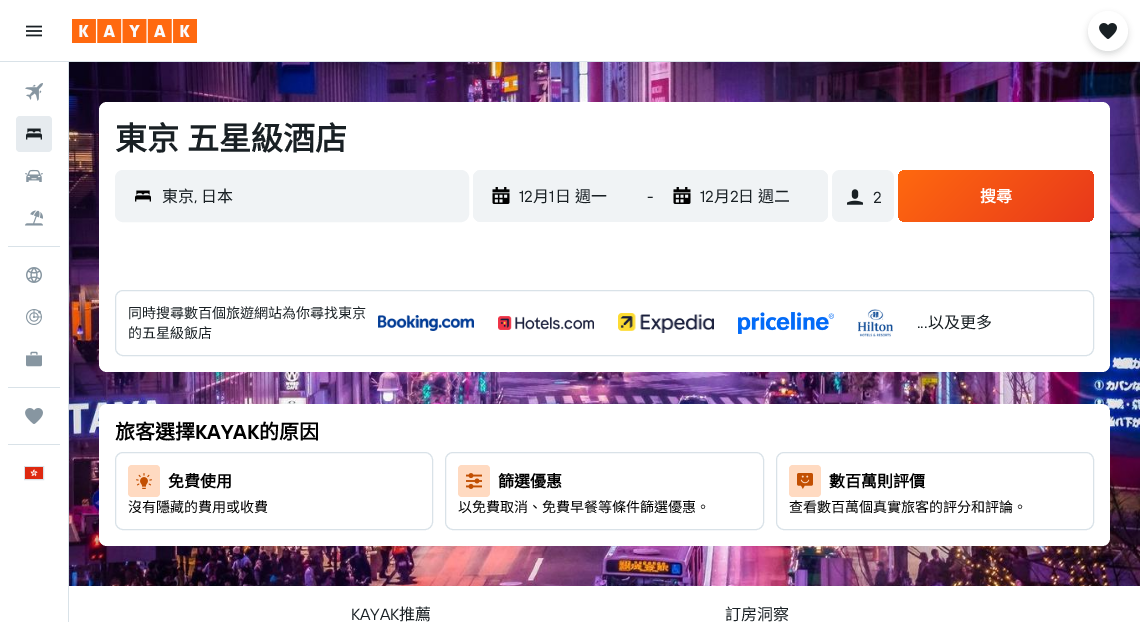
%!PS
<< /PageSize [1140 622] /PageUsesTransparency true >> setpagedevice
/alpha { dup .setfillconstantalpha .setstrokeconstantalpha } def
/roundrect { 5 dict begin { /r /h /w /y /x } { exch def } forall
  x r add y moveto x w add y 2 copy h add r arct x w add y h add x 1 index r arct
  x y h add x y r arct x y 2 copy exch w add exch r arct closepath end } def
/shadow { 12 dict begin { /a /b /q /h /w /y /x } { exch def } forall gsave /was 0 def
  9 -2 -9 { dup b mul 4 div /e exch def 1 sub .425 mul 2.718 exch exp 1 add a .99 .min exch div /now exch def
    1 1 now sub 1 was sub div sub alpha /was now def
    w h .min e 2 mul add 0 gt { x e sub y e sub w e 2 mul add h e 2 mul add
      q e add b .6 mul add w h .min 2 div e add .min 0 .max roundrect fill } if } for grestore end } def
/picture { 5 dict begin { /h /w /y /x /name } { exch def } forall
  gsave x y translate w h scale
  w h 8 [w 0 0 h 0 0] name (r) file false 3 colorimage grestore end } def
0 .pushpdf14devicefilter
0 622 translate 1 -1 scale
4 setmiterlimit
1 setgray
0 0 1140 622 rectfill
0.851 0.886 0.91 setrgbcolor
0 61 1140 1 rectfill
(img1.rgb) 26 25 16 12 picture
(img2.rgb) 72 19 125 24 picture
(img13.rgb) 69 62 1071 524 picture
0.098 0.125 0.141 setrgbcolor
1088 14 40 40 20 3 0.16 shadow
1 setgray
newpath 1108 31 20 0 360 arc closepath fill
(img3.rgb) 1099 23 18 16 picture
0.851 0.886 0.91 setrgbcolor
68 62 1 560 rectfill
(img4.rgb) 25 83 18 18 picture
0.902 0.922 0.937 setrgbcolor
16 116 36 36 4 roundrect fill
(img5.rgb) 26 128 16 12 picture
(img6.rgb) 25 169 18 13 picture
(img7.rgb) 25 210 18 16 picture
0.851 0.886 0.91 setrgbcolor
8 246 52 1 rectfill
(img8.rgb) 26 267 16 16 picture
(img9.rgb) 26 309 16 16 picture
(img10.rgb) 26 351 16 16 picture
8 387 52 1 rectfill
(img11.rgb) 25 408 18 16 picture
8 444 52 1 rectfill
24.5 466.5 19 13 rectstroke
(img12.rgb) 25 467 18 12 picture
1 setgray
99 102 1011 270 8 roundrect fill
/NotoSansCJKHK-Bold [32 0 0 -32 0 0] selectfont
0.098 0.125 0.141 setrgbcolor
115 150 moveto 1 0 32 (東京 五星級酒店) widthshow
0.941 0.953 0.961 setrgbcolor
115.5 170.5 353 51 7.5 roundrect gsave fill grestore
stroke
(img14.rgb) 135 190 16 12 picture
/NotoSansCJKHK-Regular [16 0 0 -16 0 0] selectfont
0.098 0.125 0.141 setrgbcolor
162 202 moveto (東京) show
/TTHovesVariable-Regular [16 0 0 -16 0 0] selectfont
194 202 moveto (,) show
/NotoSansCJKHK-Regular [16 0 0 -16 0 0] selectfont
201 202 moveto (日本) show
0.941 0.953 0.961 setrgbcolor
473 170 355 52 8 roundrect fill
473 170 174 52 8 roundrect fill
(img15.rgb) 492 187 18 17 picture
/TTHovesVariable-Regular [16 0 0 -16 0 0] selectfont
0.098 0.125 0.141 setrgbcolor
519 202 moveto (12) show
/NotoSansCJKHK-Regular [16 0 0 -16 0 0] selectfont
533 202 moveto (月) show
/TTHovesVariable-Regular [16 0 0 -16 0 0] selectfont
549 202 moveto (1) show
/NotoSansCJKHK-Regular [16 0 0 -16 0 0] selectfont
555 202 moveto (日 週一) show
/TTHovesVariable-Regular [16 0 0 -16 0 0] selectfont
647 202 moveto (-) show
0.941 0.953 0.961 setrgbcolor
654 170 174 52 8 roundrect fill
(img15.rgb) 673 187 18 17 picture
0.098 0.125 0.141 setrgbcolor
700 202 moveto (12) show
/NotoSansCJKHK-Regular [16 0 0 -16 0 0] selectfont
714 202 moveto (月) show
/TTHovesVariable-Regular [16 0 0 -16 0 0] selectfont
730 202 moveto (2) show
/NotoSansCJKHK-Regular [16 0 0 -16 0 0] selectfont
738 202 moveto (日 週二) show
0.941 0.953 0.961 setrgbcolor
832 170 62 52 8 roundrect fill
(img16.rgb) 847 189 16 16 picture
/TTHovesVariable-Regular [16 0 0 -16 0 0] selectfont
0.098 0.125 0.141 setrgbcolor
873 203 moveto (2) show
gsave 898 170 196 52 8 roundrect clip newpath
<< /ShadingType 2 /ColorSpace /DeviceRGB /Coords [934 134 1058 258] /Extend [true true] /Function << /FunctionType 2 /Domain [0 1] /C0 [1 0.412 0.059] /C1 [0.91 0.22 0.106] /N 1 >> >> shfill grestore
/NotoSansCJKHK-Bold [16 0 0 -16 0 0] selectfont
1 setgray
980 202 moveto (搜尋) show
0.851 0.886 0.91 setrgbcolor
115.5 290.5 978 65 7.5 roundrect stroke
/NotoSansCJKHK-Regular [14 0 0 -14 0 0] selectfont
0.098 0.125 0.141 setrgbcolor
128 318 moveto (同時搜尋數百個旅遊網站為你尋找東京) show
128 338 moveto (的五星級飯店) show
(img17.rgb) 378 315 96 16 picture
(img18.rgb) 498 316 96 14 picture
(img19.rgb) 618 313 96 20 picture
(img20.rgb) 738 312 96 22 picture
(img21.rgb) 858 309 35 28 picture
/TTHovesVariable-Regular [16 0 0 -16 0 0] selectfont
917 328 moveto (...) show
/NotoSansCJKHK-Regular [16 0 0 -16 0 0] selectfont
928 328 moveto (以及更多) show
1 setgray
99 404 1011 142 8 roundrect fill
/NotoSansCJKHK-Bold [20 0 0 -20 0 0] selectfont
0 setgray
115 439 moveto (旅客選擇) show
/TTHovesVariable-SemiBold [20 0 0 -20 0 0] selectfont
195 439 moveto (KAYAK) show
/NotoSansCJKHK-Bold [20 0 0 -20 0 0] selectfont
259 439 moveto (的原因) show
0.851 0.886 0.91 setrgbcolor
115.5 452.5 317 77 7.5 roundrect stroke
1 0.855 0.757 setrgbcolor
128 465 32 32 4 roundrect fill
(img22.rgb) 136 473 16 16 picture
/NotoSansCJKHK-Bold [16 0 0 -16 0 0] selectfont
0 setgray
168 487 moveto (免費使用) show
/NotoSansCJKHK-Regular [14 0 0 -14 0 0] selectfont
128 512 moveto (沒有隱藏的費用或收費) show
0.851 0.886 0.91 setrgbcolor
445.5 452.5 318 77 7.5 roundrect stroke
1 0.855 0.757 setrgbcolor
458 465 32 32 4 roundrect fill
(img23.rgb) 466 473 16 16 picture
/NotoSansCJKHK-Bold [16 0 0 -16 0 0] selectfont
0 setgray
498 487 moveto (篩選優惠) show
/NotoSansCJKHK-Regular [14 0 0 -14 0 0] selectfont
458 512 moveto (以免費取消、免費早餐等條件篩選優惠。) show
0.851 0.886 0.91 setrgbcolor
776.5 452.5 317 77 7.5 roundrect stroke
1 0.855 0.757 setrgbcolor
789 465 32 32 4 roundrect fill
(img24.rgb) 797 473 16 16 picture
/NotoSansCJKHK-Bold [16 0 0 -16 0 0] selectfont
0 setgray
829 487 moveto (數百萬則評價) show
/NotoSansCJKHK-Regular [14 0 0 -14 0 0] selectfont
789 512 moveto (查看數百萬個真實旅客的評分和評論。) show
/TTHovesVariable-Regular [16 0 0 -16 0 0] selectfont
0.098 0.125 0.141 setrgbcolor
351 620 moveto (KAYAK) show
/NotoSansCJKHK-Regular [16 0 0 -16 0 0] selectfont
399 620 moveto (推薦) show
725 620 moveto (訂房洞察) show
.poppdf14devicefilter showpage
